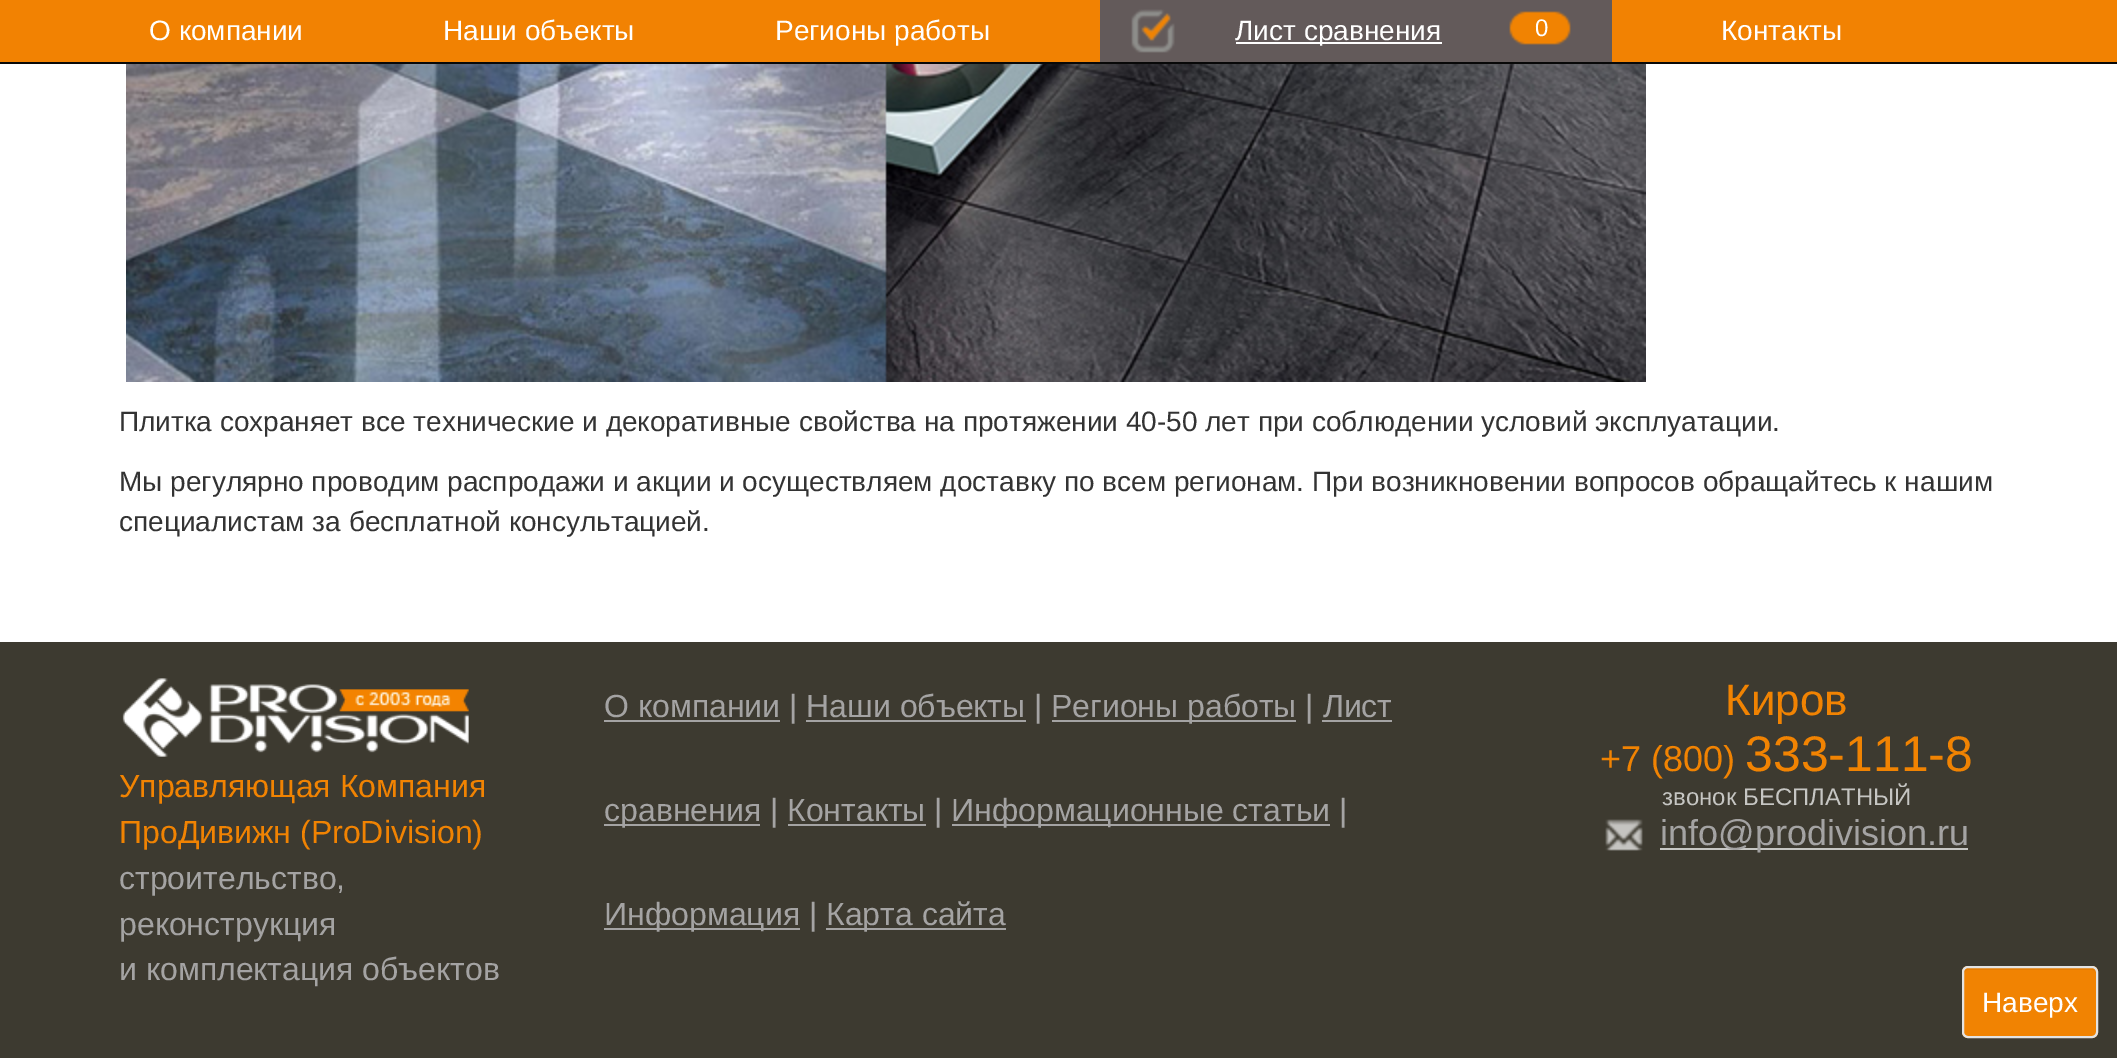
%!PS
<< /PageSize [2117 1058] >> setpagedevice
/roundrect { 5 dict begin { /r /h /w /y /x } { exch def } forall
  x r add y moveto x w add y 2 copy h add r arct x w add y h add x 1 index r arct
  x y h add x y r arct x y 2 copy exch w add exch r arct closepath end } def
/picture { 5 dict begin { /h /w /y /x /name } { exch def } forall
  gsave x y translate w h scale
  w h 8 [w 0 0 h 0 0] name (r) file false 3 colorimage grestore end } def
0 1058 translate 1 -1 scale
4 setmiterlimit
1 setgray
0 0 2117 1058 rectfill
0.949 0.51 0.008 setrgbcolor
0 0 2117 62 rectfill
0.031 setgray
0 62 2117 2 rectfill
/LiberationSans-Regular [28 0 0 -28 0 0] selectfont
1 setgray
149 40 moveto (О компании) show
443 40 moveto (Наши объекты) show
775 40 moveto (Регионы работы) show
0.388 0.353 0.353 setrgbcolor
1100 0 512 62 rectfill
(img1.rgb) 1131 9 44 44 picture
1 setgray
1236 42 206 2 rectfill
1235 40 moveto (Лист сравнения) show
(img2.rgb) 1509 11 62 34 picture
/LiberationSans-Regular [24 0 0 -24 0 0] selectfont
1535 36 moveto (0) show
/LiberationSans-Regular [28 0 0 -28 0 0] selectfont
1721 40 moveto (Контакты) show
(img3.rgb) 126 64 1520 318 picture
0.2 setgray
119 431 moveto (Плитка сохраняет все технические и декоративные свойства на протяжении 40-50 лет при соблюдении условий эксплуатации.) show
119 491 moveto (Мы регулярно проводим распродажи и акции и осуществляем доставку по всем регионам. При возникновении вопросов обращайтесь к нашим) show
119 531 moveto (специалистам за бесплатной консультацией.) show
0.239 0.227 0.188 setrgbcolor
0 642 2117 416 rectfill
(img4.rgb) 122 678 347 79 picture
/LiberationSans-Regular [32 0 0 -32 0 0] selectfont
0.945 0.514 0.008 setrgbcolor
119 797 moveto (Управляющая Компания) show
119 843 moveto (ПроДивижн \(ProDivision\)) show
0.643 0.639 0.639 setrgbcolor
119 889 moveto (строительство,) show
119 935 moveto (реконструкция) show
119 980 moveto (и комплектация объектов) show
604 720 176 2 rectfill
604 717 moveto (О компании | Наши объекты |) show
1052 720 244 2 rectfill
1051 717 moveto (Регионы работы | Лист) show
806 720 220 2 rectfill
604 824 156 2 rectfill
604 821 moveto (сравнения | Контакты |) show
1322 720 70 2 rectfill
952 824 378 2 rectfill
951 821 moveto (Информационные статьи |) show
788 824 138 2 rectfill
604 928 196 2 rectfill
604 925 moveto (Информация |) show
826 928 180 2 rectfill
826 925 moveto (Карта сайта) show
/LiberationSans-Regular [44 0 0 -44 0 0] selectfont
0.945 0.514 0.008 setrgbcolor
1725 715 moveto (Киров) show
/LiberationSans-Regular [36 0 0 -36 0 0] selectfont
1600 771 moveto (+7 \(800\)) show
/LiberationSans-Regular [50 0 0 -50 0 0] selectfont
1745 771 moveto (333-111-8) show
/LiberationSans-Regular [24 0 0 -24 0 0] selectfont
0.776 0.776 0.765 setrgbcolor
1662 805 moveto (звонок БЕСПЛАТНЫЙ) show
(img5.rgb) 1605 819 38 32 picture
1660 848 308 2 rectfill
/LiberationSans-Regular [36 0 0 -36 0 0] selectfont
0.643 0.639 0.639 setrgbcolor
1660 845 moveto (info@prodivision.ru) show
0.945 0.514 0.008 setrgbcolor
1962 966 136 72 6 roundrect fill
0.898 0.486 0.008 setrgbcolor
newpath 1968 970 moveto 2092 970 lineto 2094 970 2096 972 2096 974 curveto 2096 972 lineto 2096 970 2094 968 2092 968 curveto 1968 968 lineto 1966 968 1964 970 1964 972 curveto 1964 974 lineto 1964 972 1966 970 1968 970 curveto closepath fill
0.89 setgray
2 setlinewidth
1963 967 134 70 5 roundrect stroke
/LiberationSans-Regular [28 0 0 -28 0 0] selectfont
1 setgray
1982 1012 moveto (Наверх) show
showpage
